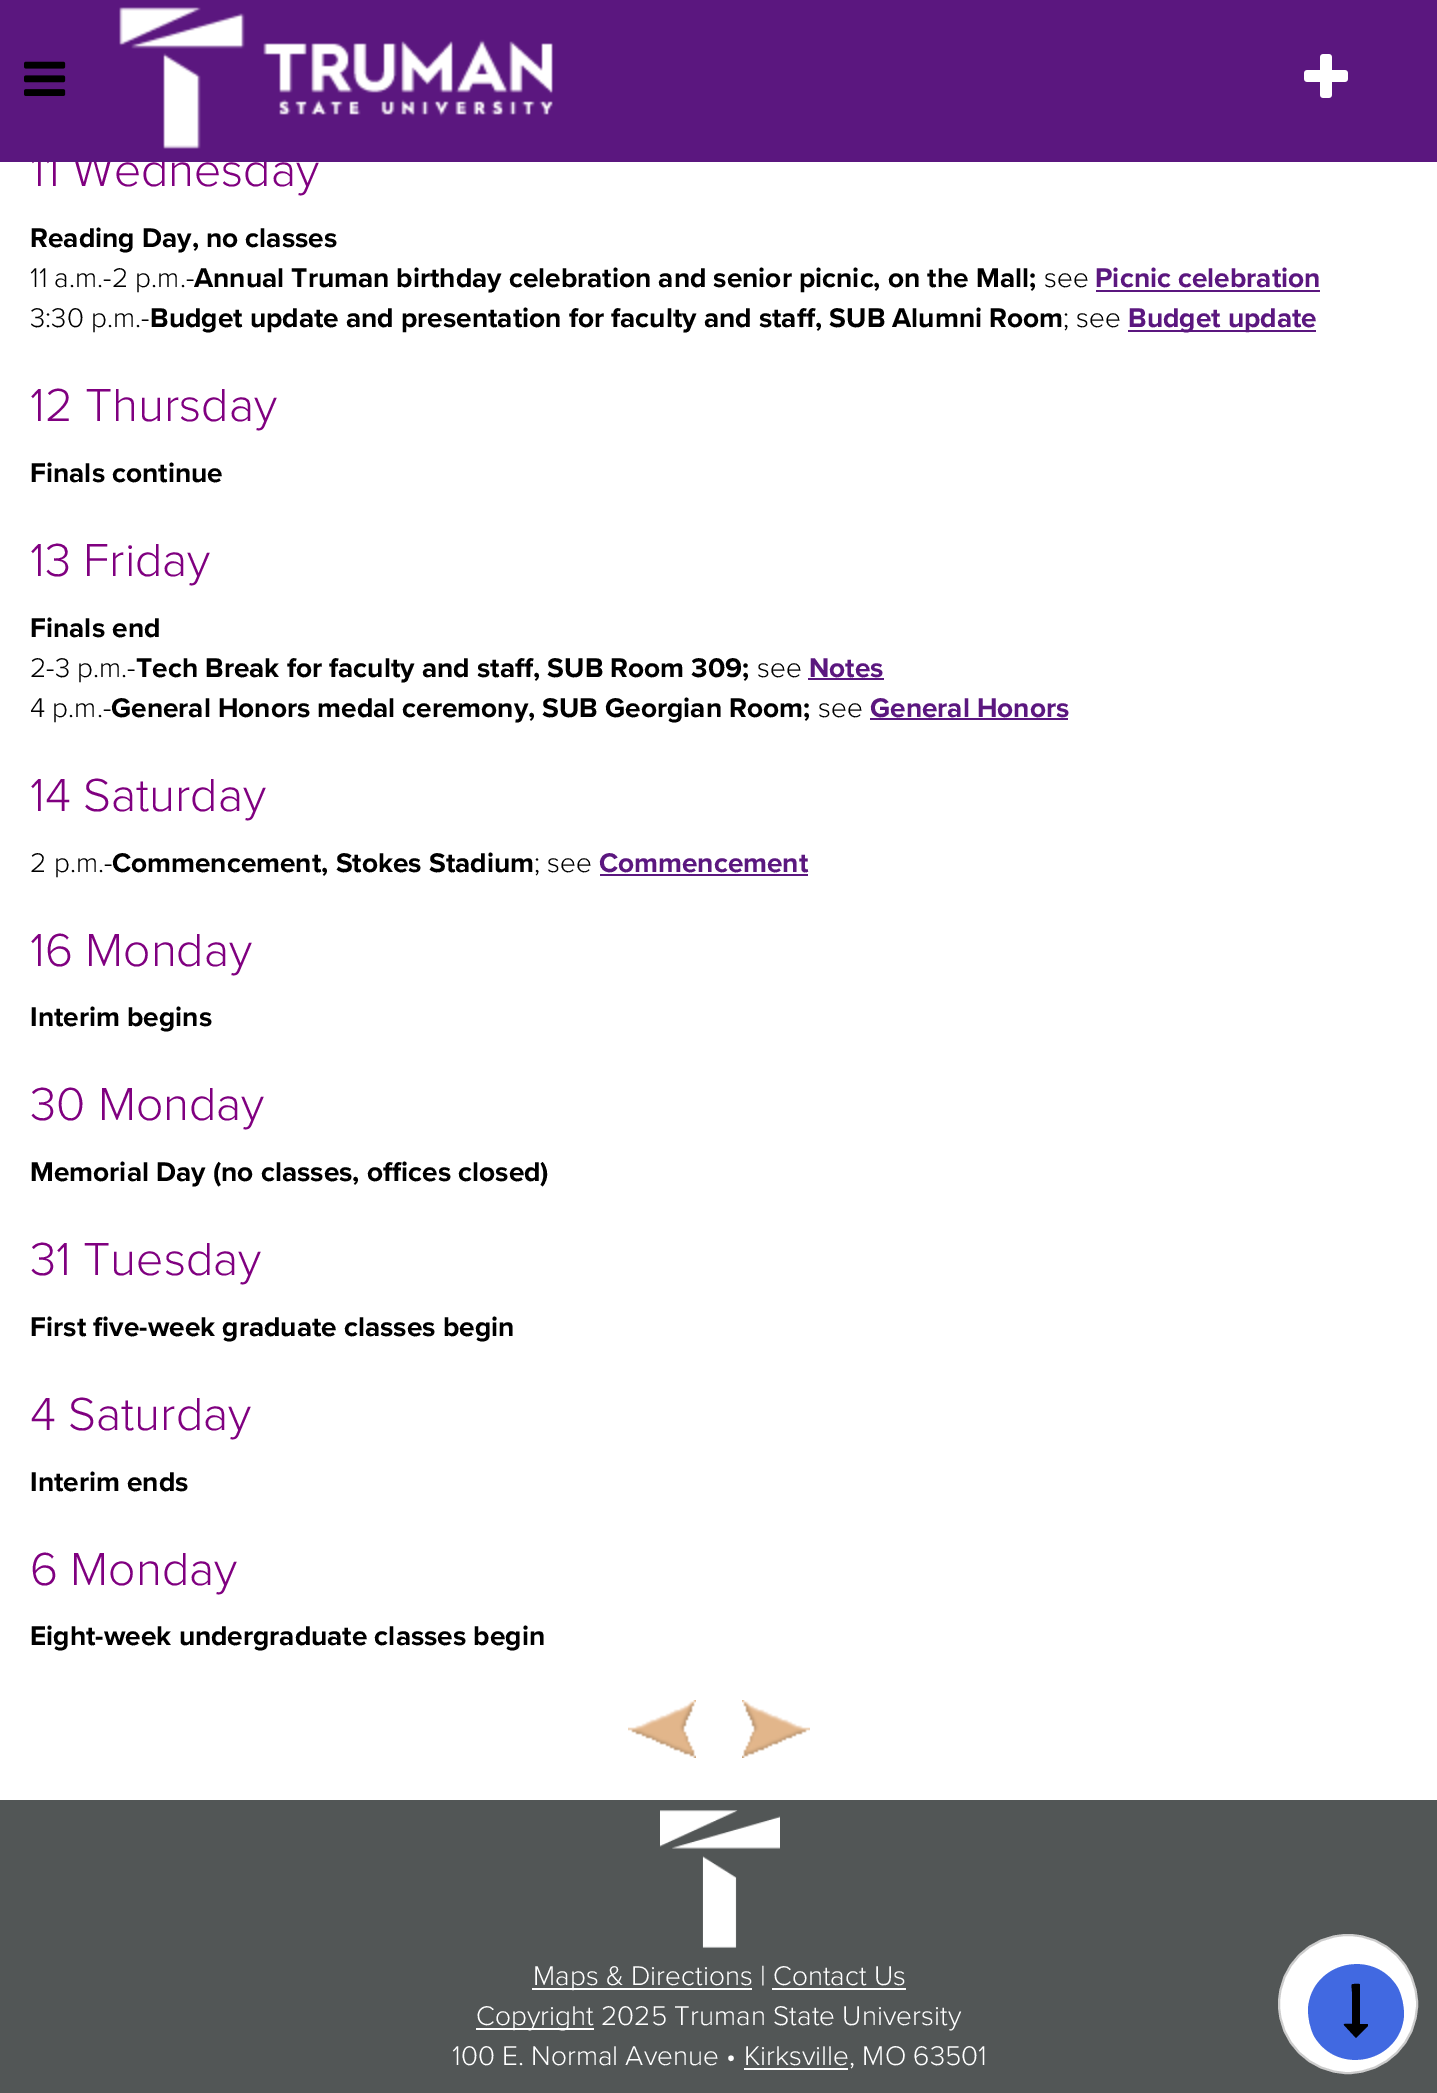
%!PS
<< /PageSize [1437 2093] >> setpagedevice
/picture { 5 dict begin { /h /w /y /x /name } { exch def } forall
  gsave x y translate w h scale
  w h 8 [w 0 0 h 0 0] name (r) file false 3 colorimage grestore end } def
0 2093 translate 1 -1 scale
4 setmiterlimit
1 setgray
0 0 1437 2093 rectfill
/ProximaNova-Light [48 0 0 -48 0 0] selectfont
0.502 0 0.502 setrgbcolor
30 186 moveto (11 Wednesday) show
0.357 0.09 0.498 setrgbcolor
0 0 1437 162 rectfill
(img1.rgb) 24 61 42 35 picture
(img2.rgb) 119 7 434 142 picture
(img3.rgb) 1304 54 44 44 picture
/ProximaNova-Bold [28 0 0 -28 0 0] selectfont
0 setgray
30 247 moveto (Reading Day, no classes) show
/ProximaNova-Light [28 0 0 -28 0 0] selectfont
30 287 moveto (11 a.m.-2 p.m.-) show
/ProximaNova-Bold [28 0 0 -28 0 0] selectfont
194 287 moveto (Annual Truman birthday celebration and senior picnic, on the Mall;) show
/ProximaNova-Light [28 0 0 -28 0 0] selectfont
1044 287 moveto (see) show
/ProximaNova-Bold [28 0 0 -28 0 0] selectfont
0.357 0.09 0.498 setrgbcolor
1095 287 moveto (Picnic celebration) show
1096 290 224 2 rectfill
/ProximaNova-Light [28 0 0 -28 0 0] selectfont
0 setgray
30 327 moveto (3:30 p.m.-) show
/ProximaNova-Bold [28 0 0 -28 0 0] selectfont
150 327 moveto (Budget update and presentation for faculty and staff, SUB Alumni Room) show
/ProximaNova-Light [28 0 0 -28 0 0] selectfont
1063 327 moveto (; see) show
0.357 0.09 0.498 setrgbcolor
1128 330 188 2 rectfill
/ProximaNova-Bold [28 0 0 -28 0 0] selectfont
1128 327 moveto (Budget update) show
/ProximaNova-Light [48 0 0 -48 0 0] selectfont
0.502 0 0.502 setrgbcolor
30 421 moveto (12 Thursday) show
/ProximaNova-Bold [28 0 0 -28 0 0] selectfont
0 setgray
30 482 moveto (Finals continue) show
/ProximaNova-Light [48 0 0 -48 0 0] selectfont
0.502 0 0.502 setrgbcolor
30 576 moveto (13 Friday) show
/ProximaNova-Bold [28 0 0 -28 0 0] selectfont
0 setgray
30 637 moveto (Finals end) show
/ProximaNova-Light [28 0 0 -28 0 0] selectfont
30 677 moveto (2-3 p.m.-) show
/ProximaNova-Bold [28 0 0 -28 0 0] selectfont
136 677 moveto (Tech Break for faculty and staff, SUB Room 309;) show
/ProximaNova-Light [28 0 0 -28 0 0] selectfont
757 677 moveto (see) show
/ProximaNova-Bold [28 0 0 -28 0 0] selectfont
0.357 0.09 0.498 setrgbcolor
809 677 moveto (Notes) show
808 678 76 2 rectfill
/ProximaNova-Light [28 0 0 -28 0 0] selectfont
0 setgray
30 717 moveto (4 p.m.-) show
/ProximaNova-Bold [28 0 0 -28 0 0] selectfont
111 717 moveto (General Honors medal ceremony, SUB Georgian Room;) show
/ProximaNova-Light [28 0 0 -28 0 0] selectfont
818 717 moveto (see) show
/ProximaNova-Bold [28 0 0 -28 0 0] selectfont
0.357 0.09 0.498 setrgbcolor
870 717 moveto (General Honors) show
870 718 198 2 rectfill
/ProximaNova-Light [48 0 0 -48 0 0] selectfont
0.502 0 0.502 setrgbcolor
30 811 moveto (14 Saturday) show
/ProximaNova-Light [28 0 0 -28 0 0] selectfont
0 setgray
30 872 moveto (2 p.m.-) show
/ProximaNova-Bold [28 0 0 -28 0 0] selectfont
112 872 moveto (Commencement, Stokes Stadium) show
/ProximaNova-Light [28 0 0 -28 0 0] selectfont
534 872 moveto (; see) show
/ProximaNova-Bold [28 0 0 -28 0 0] selectfont
0.357 0.09 0.498 setrgbcolor
599 872 moveto (Commencement) show
600 874 208 2 rectfill
/ProximaNova-Light [48 0 0 -48 0 0] selectfont
0.502 0 0.502 setrgbcolor
30 966 moveto (16 Monday) show
/ProximaNova-Bold [28 0 0 -28 0 0] selectfont
0 setgray
30 1026 moveto (Interim begins) show
/ProximaNova-Light [48 0 0 -48 0 0] selectfont
0.502 0 0.502 setrgbcolor
30 1120 moveto (30 Monday) show
/ProximaNova-Bold [28 0 0 -28 0 0] selectfont
0 setgray
30 1181 moveto (Memorial Day \(no classes, offices closed\)) show
/ProximaNova-Light [48 0 0 -48 0 0] selectfont
0.502 0 0.502 setrgbcolor
30 1275 moveto (31 Tuesday) show
/ProximaNova-Bold [28 0 0 -28 0 0] selectfont
0 setgray
30 1336 moveto (First five-week graduate classes begin) show
/ProximaNova-Light [48 0 0 -48 0 0] selectfont
0.502 0 0.502 setrgbcolor
30 1430 moveto (4 Saturday) show
/ProximaNova-Bold [28 0 0 -28 0 0] selectfont
0 setgray
30 1491 moveto (Interim ends) show
/ProximaNova-Light [48 0 0 -48 0 0] selectfont
0.502 0 0.502 setrgbcolor
30 1585 moveto (6 Monday) show
/ProximaNova-Bold [28 0 0 -28 0 0] selectfont
0 setgray
30 1645 moveto (Eight-week undergraduate classes begin) show
(img4.rgb) 628 1700 68 58 picture
(img5.rgb) 742 1700 68 58 picture
0.322 0.337 0.337 setrgbcolor
0 1800 1437 293 rectfill
(img6.rgb) 660 1810 120 138 picture
1 setgray
532 1988 220 2 rectfill
/ProximaNova-Light [28 0 0 -28 0 0] selectfont
533 1985 moveto (Maps & Directions | Contact Us) show
772 1988 134 2 rectfill
476 2028 118 2 rectfill
476 2025 moveto (Copyright 2025 Truman State University) show
452 2065 moveto (100 E. Normal Avenue • Kirksville, MO 63501) show
744 2068 104 2 rectfill
newpath 1348 2004 69 0 360 arc closepath gsave fill grestore
0.8 setgray
2 setlinewidth
stroke
0.255 0.412 0.882 setrgbcolor
newpath 1398 1988 moveto 1402 1996 1404 2006 1404 2015 curveto 1401 2062 1338 2077 1314 2036 curveto 1310 2028 1308 2018 1308 2009 curveto 1311 1962 1374 1947 1398 1988 curveto closepath fill
0 setgray
newpath 1367 2024 moveto 1368 2024 1368 2025 1368 2026 curveto 1356 2038 lineto 1344 2025 lineto 1343 2023 1351 2024 1352 2024 curveto 1352 1992 lineto 1352 1986 1350 1984 1354 1984 curveto 1355 1984 1360 1983 1360 1985 curveto 1360 2024 lineto closepath fill
showpage
